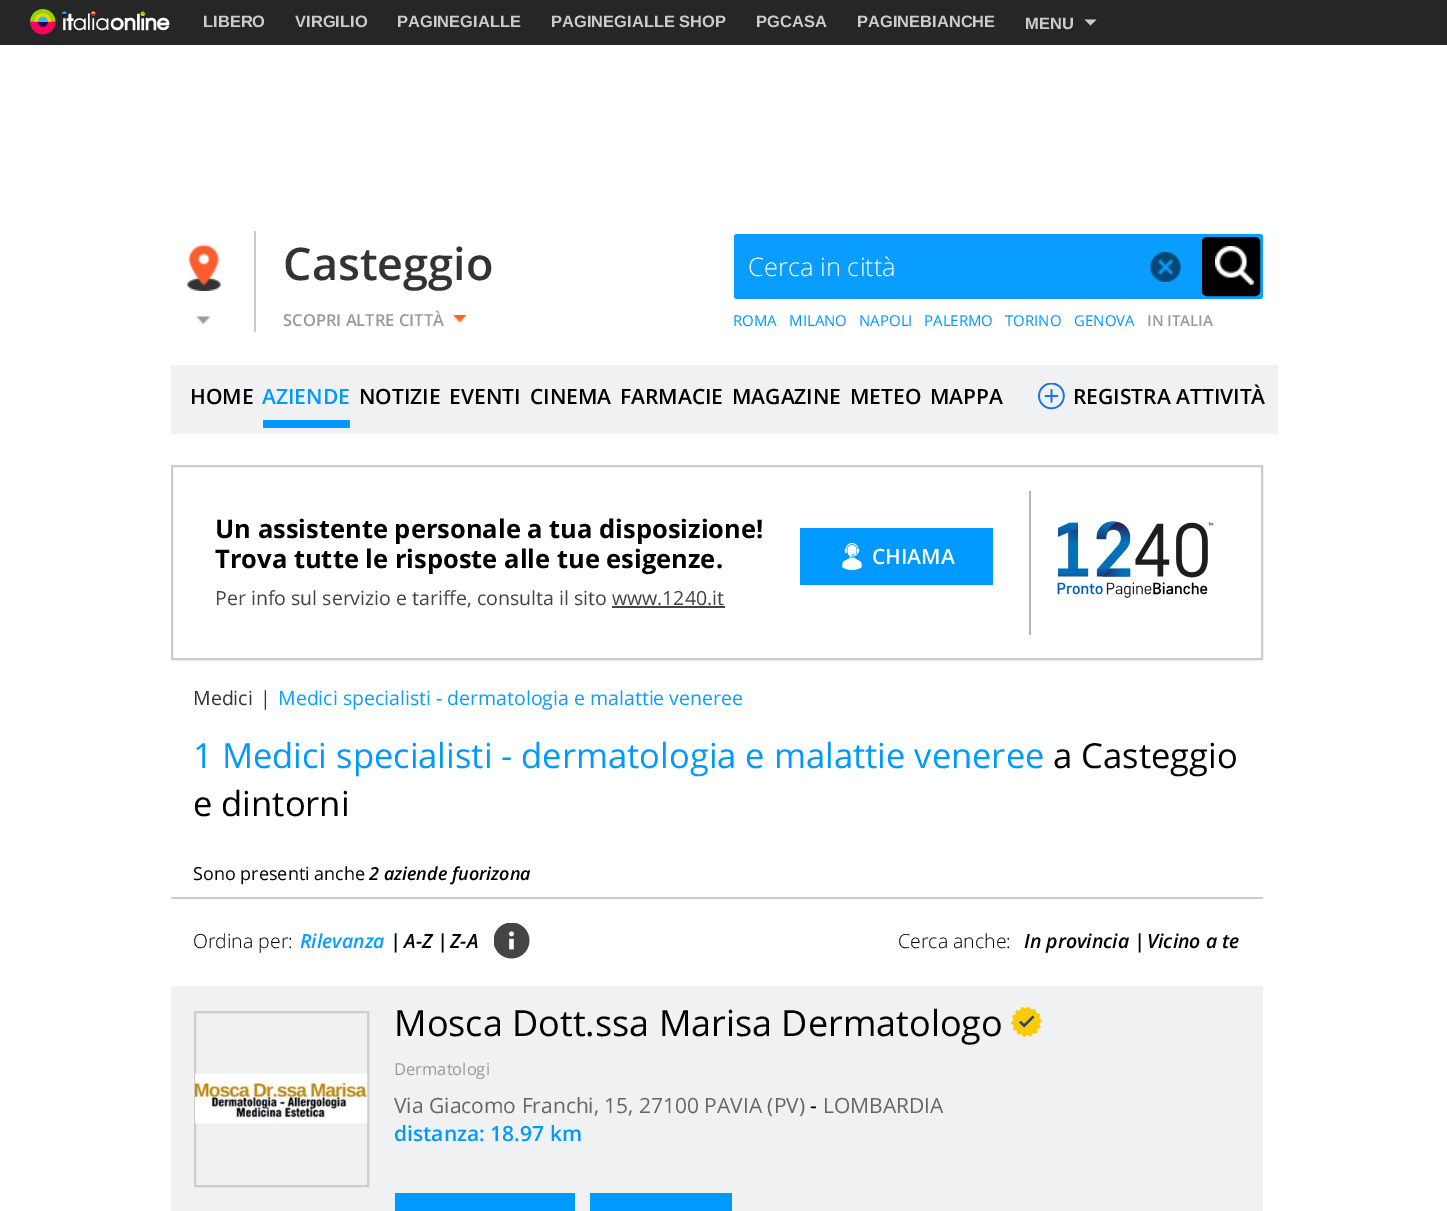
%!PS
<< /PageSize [1447 1211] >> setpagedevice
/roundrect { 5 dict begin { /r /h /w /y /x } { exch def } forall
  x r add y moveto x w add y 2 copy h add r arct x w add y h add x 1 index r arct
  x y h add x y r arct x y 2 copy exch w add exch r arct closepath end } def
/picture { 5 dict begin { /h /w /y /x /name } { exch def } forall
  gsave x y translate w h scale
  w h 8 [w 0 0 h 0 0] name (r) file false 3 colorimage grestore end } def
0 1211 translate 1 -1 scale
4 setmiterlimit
1 setgray
0 0 1447 1211 rectfill
0.149 setgray
0 0 1447 45 rectfill
(img1.rgb) 30 9 140 26 picture
/LiberationSans-Bold [16.5 0 0 -16.5 0 0] selectfont
0.8 setgray
203 27 moveto (LIBERO) show
295 27 moveto (VIRGILIO) show
397 27 moveto (PAGINEGIALLE) show
551 27 moveto (PAGINEGIALLE SHOP) show
756 27 moveto (PGCASA) show
857 27 moveto (PAGINEBIANCHE) show
1025 29 moveto (MENU) show
newpath 1084.5 19.5 moveto 1096.5 19.5 lineto 1090.5 25.5 lineto closepath fill
254 231 2 101 rectfill
(img2.rgb) 187 244 34 47 picture
(img3.rgb) 196 316 14 8 picture
/OpenSans-SemiBold [45 0 0 -45 0 0] selectfont
0.2 setgray
283 280 moveto (Casteggio) show
gsave
284 306 183 26 rectclip
/OpenSans-SemiBold [16.5 0 0 -16.5 0 0] selectfont
0.6 setgray
283 326 moveto (SCOPRI ALTRE CITTÀ) show
grestore
(img4.rgb) 453 315 14 8 picture
0.035 0.616 1 setrgbcolor
734 234 529 65 3 roundrect fill
/OpenSans-Light [25.5 0 0 -25.5 0 0] selectfont
1 setgray
748 276 moveto (Cerca in città) show
(img5.rgb) 1150 252 31 30 picture
0 setgray
1215 246 39 39 rectfill
(img6.rgb) 1215 246 39 39 picture
6 setlinewidth
1205 240 52 53 2 roundrect stroke
1205 243 54 3 rectfill
1205 285 54 5 rectfill
1208 240 7 45 rectfill
/OpenSans-Regular [15 0 0 -15 0 0] selectfont
0 0.6 1 setrgbcolor
733 326 moveto (ROMA) show
789 326 moveto (MILANO) show
859 326 moveto (NAPOLI) show
924 326 moveto (PALERMO) show
1005 326 moveto (TORINO) show
1074 326 moveto (GENOVA) show
/OpenSans-SemiBold [15 0 0 -15 0 0] selectfont
0.6 setgray
1147 326 moveto (IN ITALIA) show
0.941 0.945 0.953 setrgbcolor
171 365 1107 69 rectfill
/OpenSans-SemiBold [21 0 0 -21 0 0] selectfont
0 setgray
190 404 moveto (HOME) show
0 0.6 1 setrgbcolor
262 404 moveto (AZIENDE) show
263 420 87 8 rectfill
0 setgray
359 404 moveto (NOTIZIE) show
449 404 moveto (EVENTI) show
530 404 moveto (CINEMA) show
620 404 moveto (FARMACIE) show
732 404 moveto (MAGAZINE) show
850 404 moveto (METEO) show
930 404 moveto (MAPPA) show
(img7.rgb) 1038 383 27 27 picture
1073 404 moveto (REGISTRA ATTIVITÀ) show
0.8 setgray
2 setlinewidth
172 466 1090 193 rectstroke
/OpenSans-Bold [25.5 0 0 -25.5 0 0] selectfont
0 setgray
215 538 moveto (Un assistente personale a tua disposizione!) show
215 568 moveto (Trova tutte le risposte alle tue esigenze.) show
/OpenSans-Regular [19.5 0 0 -19.5 0 0] selectfont
0.267 setgray
215 605 moveto (Per info sul servizio e tariffe, consulta il sito www.1240.it) show
612 606 113 2 rectfill
0 0.6 1 setrgbcolor
800 528 193 57 rectfill
(img8.rgb) 842 543 20 27 picture
/OpenSans-SemiBold [21 0 0 -21 0 0] selectfont
1 setgray
872 564 moveto (CHIAMA) show
0.706 setgray
1029 491 2 144 rectfill
(img9.rgb) 1057 521 157 77 picture
/OpenSans-Regular [19.5 0 0 -19.5 0 0] selectfont
0.2 setgray
193 705 moveto (Medici) show
260 705 moveto (|) show
0.035 0.616 1 setrgbcolor
278 705 moveto (Medici specialisti - dermatologia e malattie veneree) show
0.8 setgray
171 897 1092 2 rectfill
/OpenSans-Regular [34.5 0 0 -34.5 0 0] selectfont
0 0.6 1 setrgbcolor
193 768 moveto (1 Medici specialisti - dermatologia e malattie veneree) show
0 setgray
1053 768 moveto (a Casteggio) show
193 816 moveto (e dintorni) show
/OpenSans-Regular [18 0 0 -18 0 0] selectfont
193 880 moveto (Sono presenti anche) show
/OpenSans-SemiBoldItalic [18 0 0 -18 0 0] selectfont
369 880 moveto (2 aziende fuorizona) show
/OpenSans-Light [19.5 0 0 -19.5 0 0] selectfont
193 948 moveto (Ordina per:) show
/OpenSans-SemiBoldItalic [19.5 0 0 -19.5 0 0] selectfont
0.035 0.616 1 setrgbcolor
300 948 moveto (Rilevanza) show
0 setgray
390 948 moveto (|) show
404 948 moveto (A-Z |) show
450 948 moveto (Z-A) show
(img10.rgb) 494 923 36 36 picture
/OpenSans-Light [19.5 0 0 -19.5 0 0] selectfont
898 948 moveto (Cerca anche:) show
/OpenSans-SemiBoldItalic [19.5 0 0 -19.5 0 0] selectfont
1024 948 moveto (In provincia |) show
1147 948 moveto (Vicino a te) show
0.941 0.945 0.953 setrgbcolor
171 986 1092 225 rectfill
0.8 setgray
195 1012 173 174 rectstroke
(img11.rgb) 195 1073 173 51 picture
/OpenSans-Regular [36 0 0 -36 0 0] selectfont
0 setgray
394 1036 moveto (Mosca Dott.ssa Marisa Dermatologo) show
(img12.rgb) 1011 1007 30 30 picture
/OpenSans-Regular [16.5 0 0 -16.5 0 0] selectfont
0.6 setgray
394 1075 moveto (Dermatologi) show
/OpenSans-Regular [21 0 0 -21 0 0] selectfont
0.4 setgray
394 1113 moveto (Via Giacomo Franchi, 15, 27100 PAVIA \(PV\)) show
0 setgray
810 1113 moveto (-) show
0.4 setgray
823 1113 moveto (LOMBARDIA) show
/OpenSans-SemiBold [21 0 0 -21 0 0] selectfont
0 0.6 1 setrgbcolor
394 1141 moveto (distanza: 18.97 km) show
395 1193 180 18 rectfill
590 1193 142 18 rectfill
showpage
